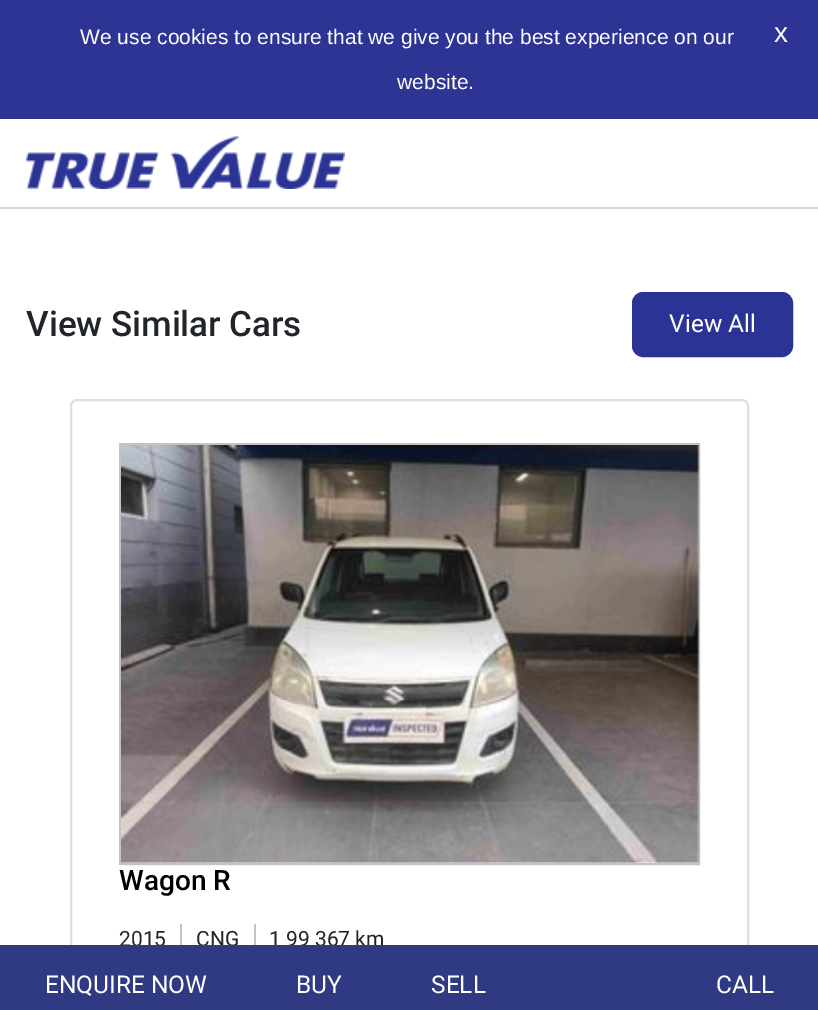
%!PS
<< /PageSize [818 1010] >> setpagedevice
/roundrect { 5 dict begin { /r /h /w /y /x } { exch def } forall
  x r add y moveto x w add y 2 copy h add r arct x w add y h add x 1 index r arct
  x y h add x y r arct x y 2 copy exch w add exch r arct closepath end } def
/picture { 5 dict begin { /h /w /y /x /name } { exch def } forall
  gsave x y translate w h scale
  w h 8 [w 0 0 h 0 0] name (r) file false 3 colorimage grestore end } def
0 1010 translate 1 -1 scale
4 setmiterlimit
1 setgray
0 0 818 1010 rectfill
0.176 0.204 0.58 setrgbcolor
0 0 818 119 rectfill
/LiberationSans-Regular [21 0 0 -21 0 0] selectfont
1 setgray
80 44 moveto (We use cookies to ensure that we give you the best experience on our) show
/LiberationSans-Regular [28 0 0 -28 0 0] selectfont
774 42 moveto (x) show
/LiberationSans-Regular [21 0 0 -21 0 0] selectfont
397 89 moveto (website.) show
0.839 setgray
0 207 818 2 rectfill
(img1.rgb) 26 136 319 53 picture
/Roboto-Medium [35 0 0 -35 0 0] selectfont
0.129 0.145 0.161 setrgbcolor
26 336 moveto (View Similar Cars) show
0.169 0.2 0.584 setrgbcolor
633 293 159 63 10 roundrect gsave fill grestore
2 setlinewidth
stroke
/Roboto-Regular [24.5 0 0 -24.5 0 0] selectfont
1 setgray
669 332 moveto (View All) show
0.875 setgray
71 400 677 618 6 roundrect stroke
0.765 setgray
120 444 579 420 rectstroke
(img2.rgb) 121 445 578 418 picture
/Roboto-Medium [28 0 0 -28 0 0] selectfont
0 setgray
119 890 moveto (Wagon R) show
0.765 setgray
180 924 2 21 rectfill
/Roboto-Regular [21 0 0 -21 0 0] selectfont
0.129 0.145 0.161 setrgbcolor
119 946 moveto (2015) show
0.765 setgray
254 924 2 21 rectfill
0.129 0.145 0.161 setrgbcolor
196 946 moveto (CNG) show
269 946 moveto (1 99 367 km) show
0.184 0.227 0.51 setrgbcolor
0 945 818 65 rectfill
/Roboto-Regular [24.5 0 0 -24.5 0 0] selectfont
1 setgray
45 993 moveto (ENQUIRE NOW) show
296 993 moveto (BUY) show
431 993 moveto (SELL) show
716 993 moveto (CALL) show
showpage
